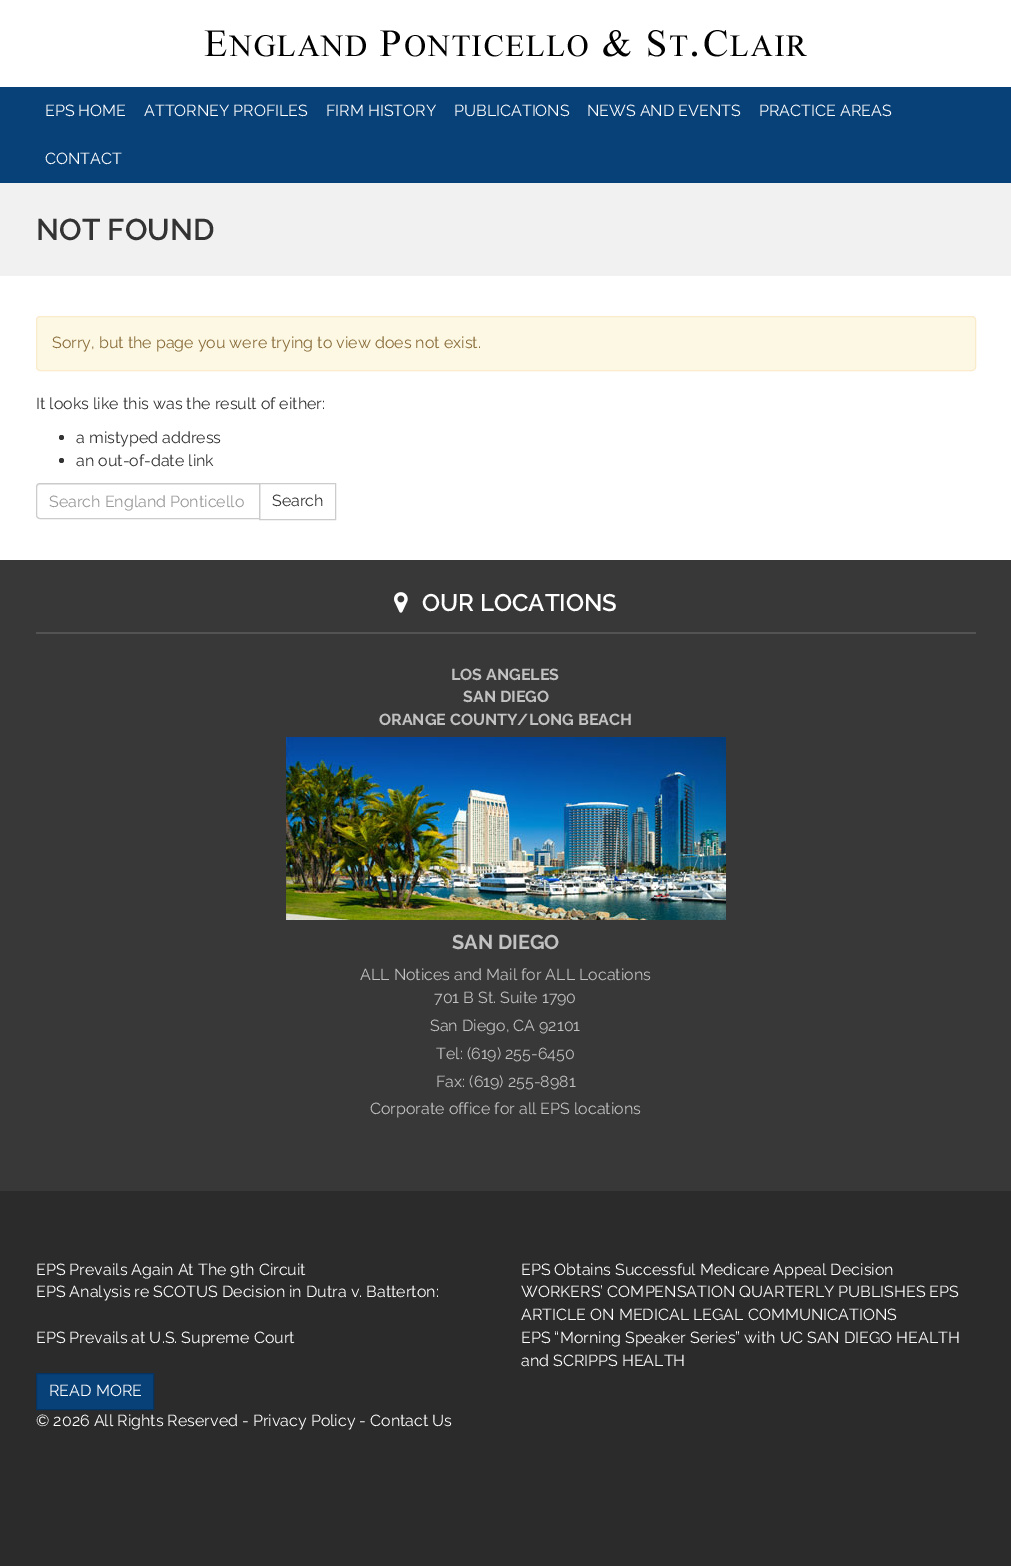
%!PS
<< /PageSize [1011 1566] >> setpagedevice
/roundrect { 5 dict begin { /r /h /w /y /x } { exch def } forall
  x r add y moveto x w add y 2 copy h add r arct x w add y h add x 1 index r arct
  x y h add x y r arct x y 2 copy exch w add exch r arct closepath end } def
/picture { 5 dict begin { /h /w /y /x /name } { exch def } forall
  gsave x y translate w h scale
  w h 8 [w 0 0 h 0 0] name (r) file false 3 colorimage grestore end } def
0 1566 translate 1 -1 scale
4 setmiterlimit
0.169 setgray
0 0 1011 1566 rectfill
1 setgray
0 0 1011 87 rectfill
(img1.rgb) 204 30 603 27 picture
0.031 0.251 0.471 setrgbcolor
0 87 1011 96 rectfill
/Raleway-Regular [16 0 0 -16 0 0] selectfont
1 setgray
45 116 moveto (EPS HOME) show
144 116 moveto (ATTORNEY PROFILES) show
326 116 moveto (FIRM HISTORY) show
454 116 moveto (PUBLICATIONS) show
587 116 moveto (NEWS AND EVENTS) show
759 116 moveto (PRACTICE AREAS) show
45 164 moveto (CONTACT) show
0.945 setgray
0 183 1011 93 rectfill
/Raleway-SemiBold [30 0 0 -30 0 0] selectfont
0.2 setgray
36 240 moveto (NOT FOUND) show
1 setgray
0 276 1011 284 rectfill
0.988 0.973 0.89 setrgbcolor
36.5 316.5 939 54 3.5 roundrect gsave fill grestore
0.98 0.922 0.8 setrgbcolor
stroke
/Raleway-Regular [16 0 0 -16 0 0] selectfont
0.541 0.427 0.231 setrgbcolor
52 348 moveto (Sorry, but the page you were trying to view does not exist.) show
0.2 setgray
36 409 moveto (It looks like this was the result of either:) show
newpath 61.5 437.5 2.5 0 360 arc closepath fill
76 443 moveto (a mistyped address) show
newpath 61.5 460.5 2.5 0 360 arc closepath fill
76 466 moveto (an out-of-date link) show
0.8 setgray
259.5 483.5 76 36 rectstroke
1 setgray
newpath 40 483 moveto 260 483 lineto 260 519 lineto 40 519 lineto 38 519 36 517 36 515 curveto 36 487 lineto 36 485 38 483 40 483 curveto closepath fill
0.925 setgray
newpath 40 485 moveto 259 485 lineto 259 484 lineto 40 484 lineto 38 484 37 486 37 488 curveto 37 486 38 485 40 485 curveto closepath fill
0.8 setgray
newpath 40 483.5 moveto 259.5 483.5 lineto 259.5 518.5 lineto 40 518.5 lineto 38 518.5 36.5 517 36.5 515 curveto 36.5 487 lineto 36.5 485 38 483.5 40 483.5 curveto closepath stroke
0.6 setgray
49 507 moveto (Search England Ponticello) show
0.2 setgray
272 506 moveto (Search) show
0.22 setgray
0 560 1011 631 rectfill
0.325 setgray
36 632 940 2 rectfill
(img2.rgb) 394 592 14 21 picture
/Raleway-SemiBold [24 0 0 -24 0 0] selectfont
1 setgray
422 611 moveto (OUR LOCATIONS) show
/Raleway-Bold [16 0 0 -16 0 0] selectfont
0.757 setgray
451 680 moveto (LOS ANGELES) show
463 702 moveto (SAN DIEGO) show
379 725 moveto (ORANGE COUNTY/LONG BEACH) show
(img3.rgb) 286 737 440 183 picture
/Raleway-Bold [20 0 0 -20 0 0] selectfont
452 949 moveto (SAN DIEGO) show
/Raleway-Regular [16 0 0 -16 0 0] selectfont
360 980 moveto (ALL Notices and Mail for ALL Locations) show
434 1003 moveto (701 B St. Suite 1790) show
430 1031 moveto (San Diego, CA 92101) show
436 1059 moveto (Tel: \(619\) 255-6450) show
436 1087 moveto (Fax: \(619\) 255-8981) show
370 1114 moveto (Corporate office for all EPS locations) show
1 setgray
36 1275 moveto (EPS Prevails Again At The 9th Circuit) show
521 1275 moveto (EPS Obtains Successful Medicare Appeal Decision) show
36 1297 moveto (EPS Analysis re SCOTUS Decision in Dutra v. Batterton:) show
521 1297 moveto (WORKERS’ COMPENSATION QUARTERLY PUBLISHES EPS) show
521 1320 moveto (ARTICLE ON MEDICAL LEGAL COMMUNICATIONS) show
36 1343 moveto (EPS Prevails at U.S. Supreme Court) show
521 1343 moveto (EPS “Morning Speaker Series” with UC SAN DIEGO HEALTH) show
521 1366 moveto (and SCRIPPS HEALTH) show
0.031 0.251 0.471 setrgbcolor
newpath 36.5 1373.5 moveto 153.5 1373.5 lineto 153.5 1409.5 lineto 36.5 1409.5 lineto closepath gsave fill grestore
0.024 0.2 0.376 setrgbcolor
stroke
1 setgray
49 1396 moveto (READ MORE) show
36 1426 moveto (© 2026 All Rights Reserved - Privacy Policy - Contact Us) show
showpage
